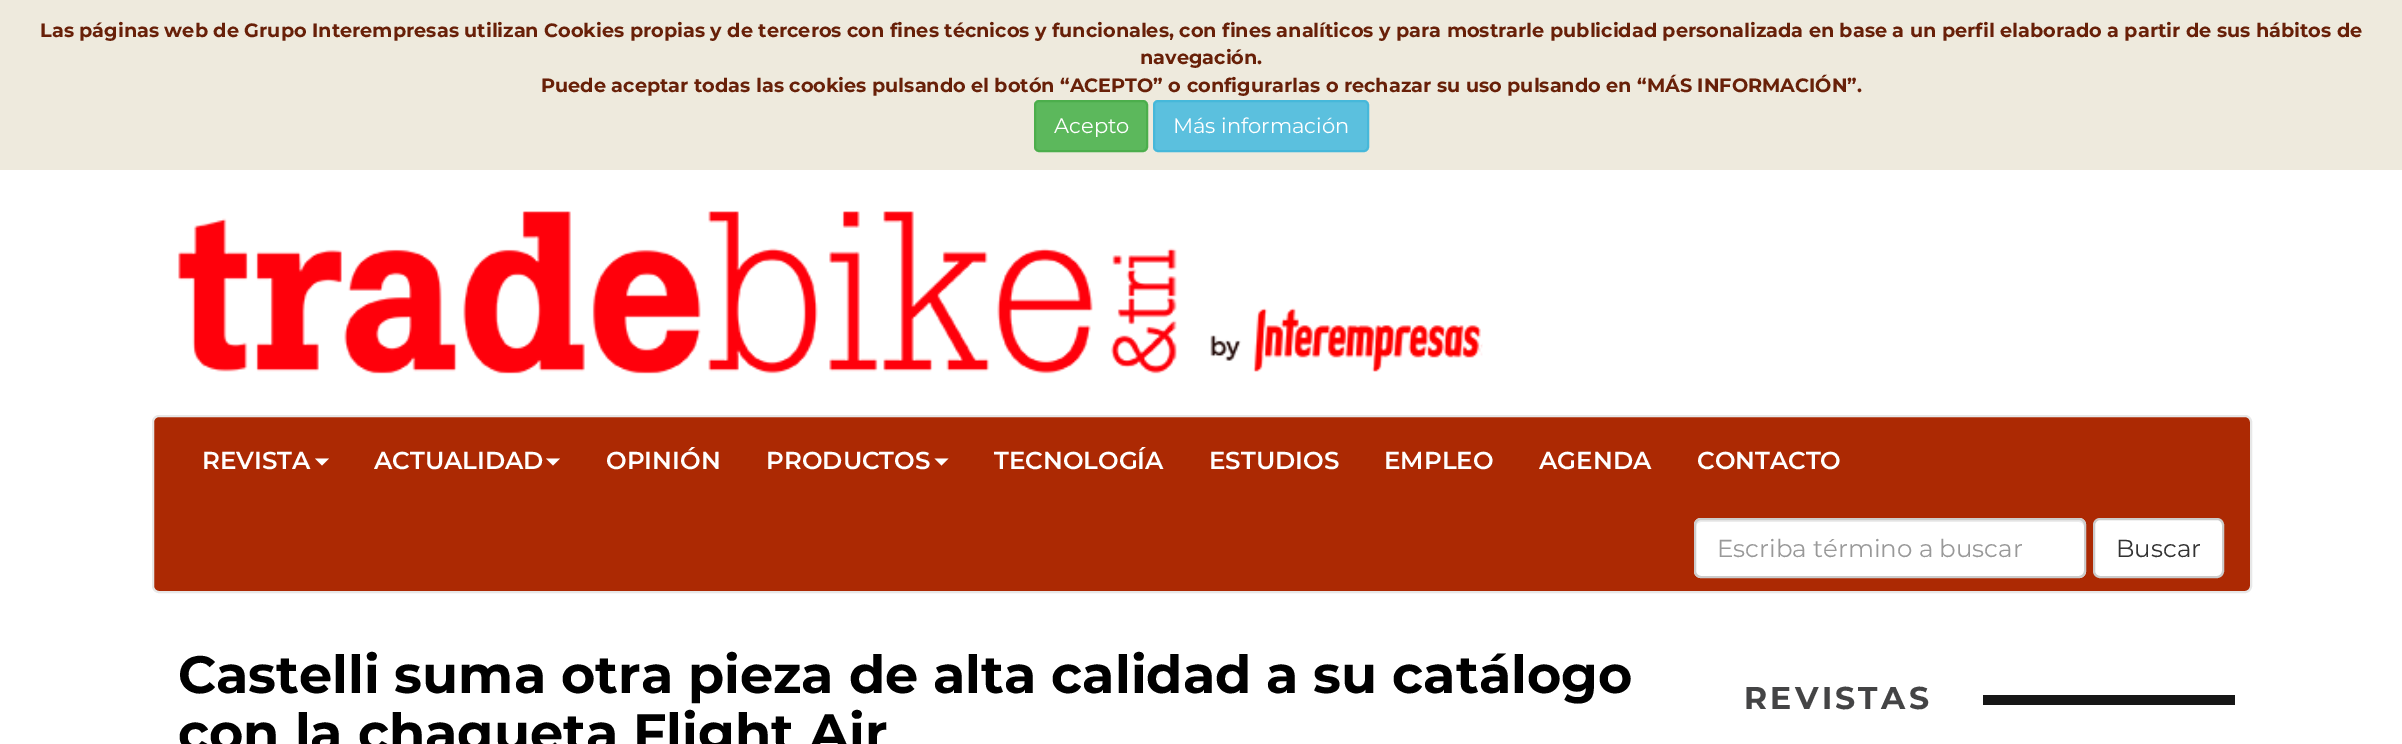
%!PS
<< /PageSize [2402 744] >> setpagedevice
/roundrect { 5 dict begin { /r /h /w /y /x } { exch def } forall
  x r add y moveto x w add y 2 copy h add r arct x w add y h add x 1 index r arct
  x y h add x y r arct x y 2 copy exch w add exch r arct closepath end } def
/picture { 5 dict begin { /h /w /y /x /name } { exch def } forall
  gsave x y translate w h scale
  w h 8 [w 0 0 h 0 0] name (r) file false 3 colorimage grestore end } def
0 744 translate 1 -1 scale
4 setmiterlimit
1 setgray
0 0 2402 744 rectfill
0.933 0.918 0.867 setrgbcolor
0 0 2402 170 rectfill
/Montserrat-Bold [19.25 0 0 -19.25 0 0] selectfont
0.408 0.125 0.031 setrgbcolor
40 37 moveto (Las páginas web de Grupo Interempresas utilizan Cookies propias y de terceros con fines técnicos y funcionales, con fines analíticos y para mostrarle publicidad personalizada en base a un perfil elaborado a partir de sus hábitos de) show
1140 64 moveto (navegación.) show
541 92 moveto (Puede aceptar todas las cookies pulsando el botón “ACEPTO” o configurarlas o rechazar su uso pulsando en “MÁS INFORMACIÓN”.) show
0.361 0.722 0.361 setrgbcolor
1035 101 112 50 4 roundrect gsave fill grestore
0.298 0.682 0.298 setrgbcolor
2 setlinewidth
stroke
/Montserrat-Regular [21 0 0 -21 0 0] selectfont
1 setgray
1054 133 moveto (Acepto) show
0.357 0.753 0.871 setrgbcolor
1154 101 214 50 4 roundrect gsave fill grestore
0.275 0.722 0.855 setrgbcolor
stroke
1 setgray
1173 133 moveto (Más información) show
(img1.rgb) 178 211 1305 163 picture
0.675 0.161 0.012 setrgbcolor
153 416 2098 176 6 roundrect gsave fill grestore
0.906 setgray
stroke
/Montserrat-SemiBold [24.5 0 0 -24.5 0 0] selectfont
1 setgray
202 469 moveto (REVISTA) show
newpath 315 458.5 moveto 329 458.5 lineto 322 465.5 lineto closepath fill
374 469 moveto (ACTUALIDAD) show
newpath 546 458.5 moveto 560 458.5 lineto 553 465.5 lineto closepath fill
606 469 moveto (OPINIÓN) show
766 469 moveto (PRODUCTOS) show
newpath 934.5 458.5 moveto 948.5 458.5 lineto 941.5 465.5 lineto closepath fill
994 469 moveto (TECNOLOGÍA) show
1209 469 moveto (ESTUDIOS) show
1384 469 moveto (EMPLEO) show
1539 469 moveto (AGENDA) show
1697 469 moveto (CONTACTO) show
1694 518 392 60 7 roundrect fill
0.925 setgray
newpath 1701 522 moveto 2079 522 lineto 2082 522 2084 524 2084 527 curveto 2084 525 lineto 2084 522 2082 520 2079 520 curveto 1701 520 lineto 1698 520 1696 522 1696 525 curveto 1696 527 lineto 1696 524 1698 522 1701 522 curveto closepath fill
0.8 setgray
1695 519 390 58 6 roundrect stroke
/Montserrat-Regular [24.5 0 0 -24.5 0 0] selectfont
0.6 setgray
1717 557 moveto (Escriba término a buscar) show
1 setgray
2094 519 129 58 6 roundrect gsave fill grestore
0.8 setgray
stroke
0.2 setgray
2116 557 moveto (Buscar) show
/Montserrat-Bold [52.5 0 0 -52.5 0 0] selectfont
0 setgray
178 693 moveto (Castelli suma otra pieza de alta calidad a su catálogo) show
178 751 moveto (con la chaqueta Flight Air) show
/Montserrat-Bold [31.5 0 0 -31.5 0 0] selectfont
0.267 0.267 0.271 setrgbcolor
1744 709 moveto 3.25 0 (REVISTAS) ashow
0.086 setgray
1983 695 252 10 rectfill
showpage
